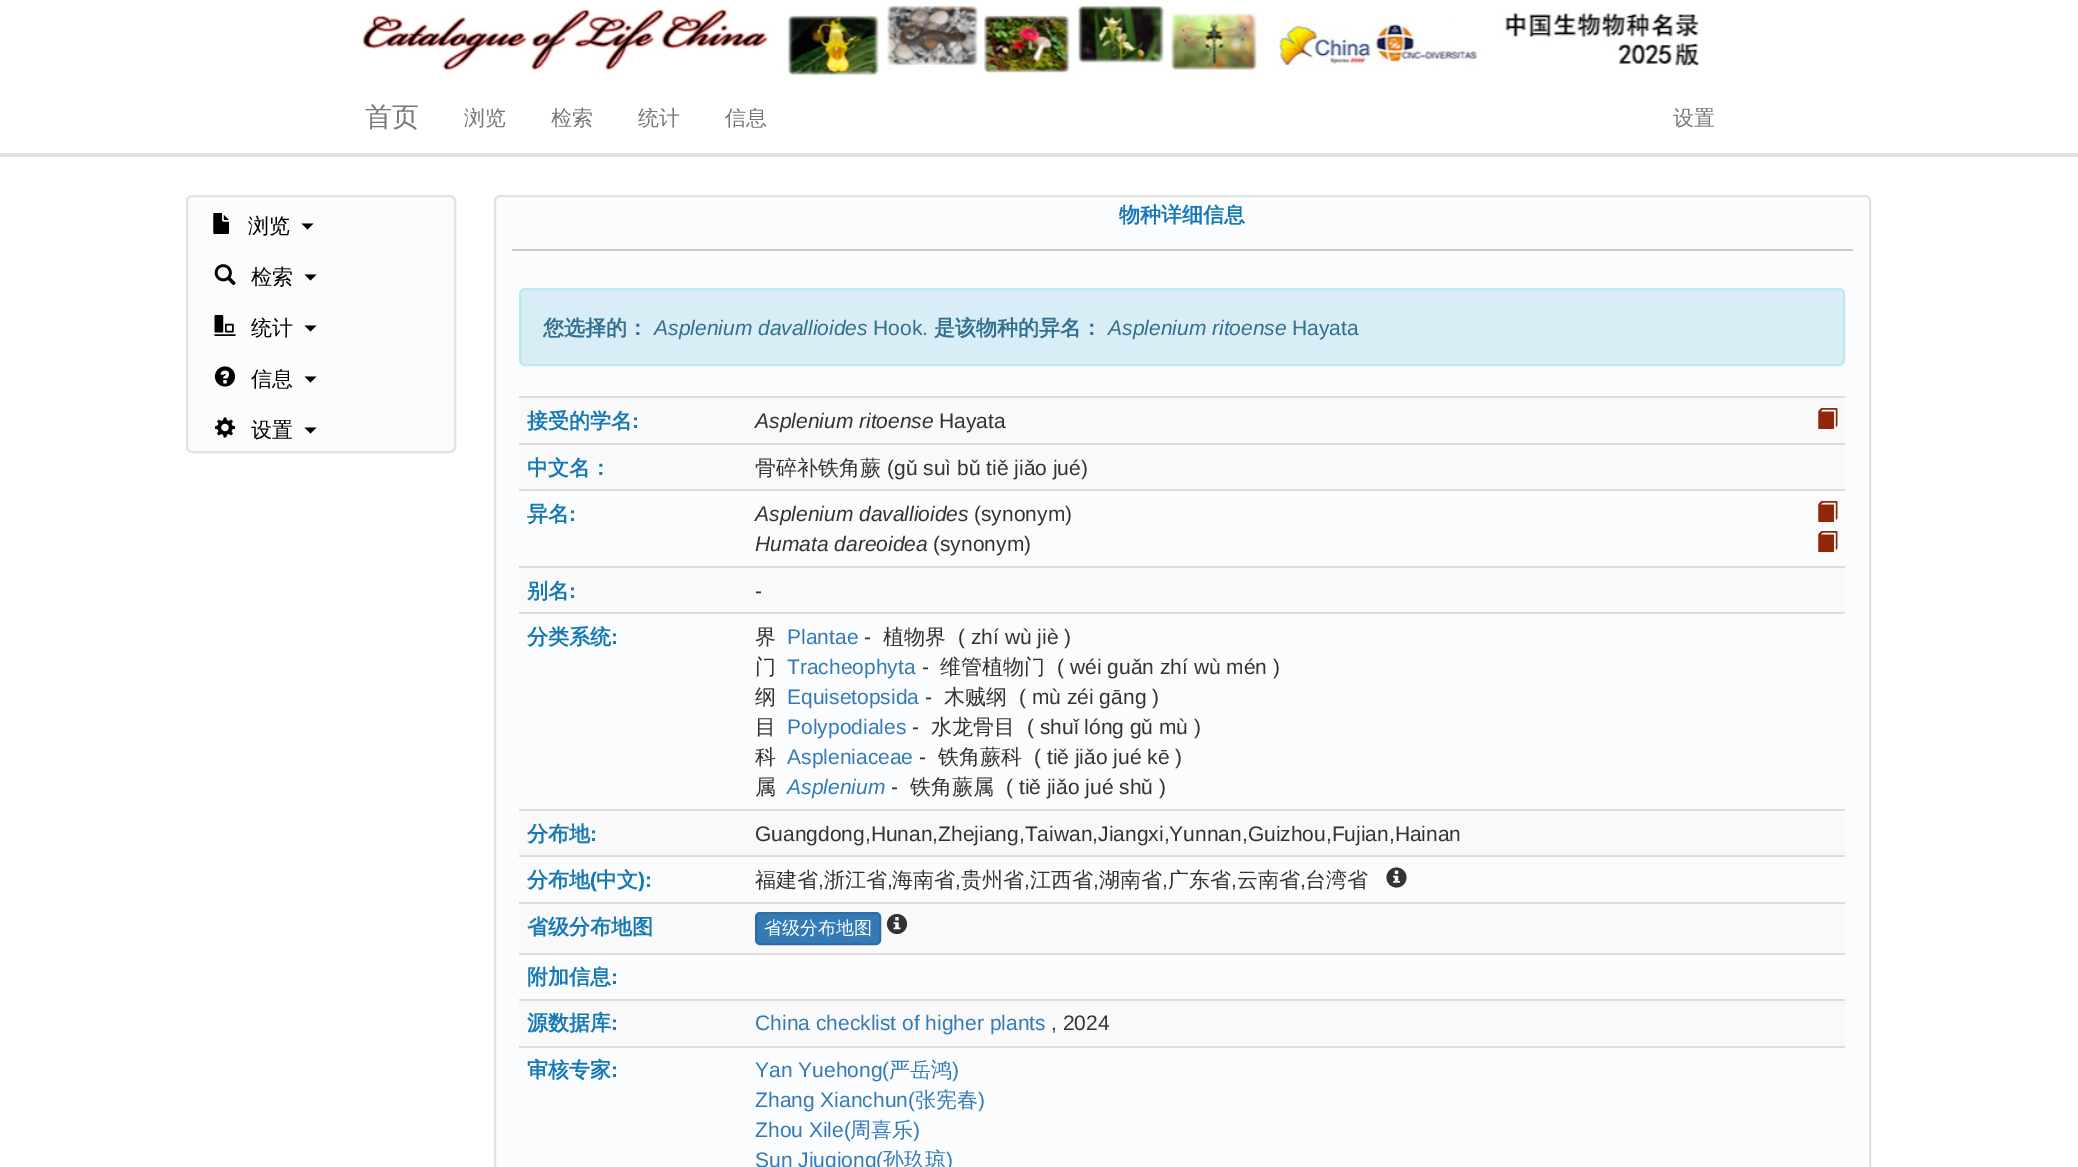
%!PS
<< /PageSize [2078 1167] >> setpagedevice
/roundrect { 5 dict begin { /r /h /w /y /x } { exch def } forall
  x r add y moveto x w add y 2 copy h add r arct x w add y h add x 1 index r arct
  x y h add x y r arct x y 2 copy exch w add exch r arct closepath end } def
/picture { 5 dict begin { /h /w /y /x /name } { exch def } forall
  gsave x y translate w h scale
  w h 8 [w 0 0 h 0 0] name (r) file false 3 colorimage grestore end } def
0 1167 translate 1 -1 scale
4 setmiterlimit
1 setgray
0 0 2078 1167 rectfill
(img1.rgb) 362 6 1338 69 picture
/WenQuanYiZenHei-Medium [27 0 0 -27 0 0] selectfont
0.467 setgray
365 126 moveto (首页) show
/WenQuanYiZenHei-Medium [21 0 0 -21 0 0] selectfont
464 125 moveto (浏览) show
551 125 moveto (检索) show
638 125 moveto (统计) show
725 125 moveto (信息) show
1673 125 moveto (设置) show
0.886 setgray
0 153 2078 4 rectfill
0.98 0.988 0.996 setrgbcolor
187 196 268 256 5 roundrect gsave fill grestore
0.89 setgray
2 setlinewidth
stroke
(img2.rgb) 213 213 16 21 picture
0 setgray
248 233 moveto (浏览) show
newpath 301.5 223.5 moveto 313.5 223.5 lineto 307.5 229.5 lineto closepath fill
(img3.rgb) 214 264 22 22 picture
251 284 moveto (检索) show
newpath 304.5 274.5 moveto 316.5 274.5 lineto 310.5 280.5 lineto closepath fill
(img4.rgb) 214 315 22 21 picture
251 335 moveto (统计) show
newpath 304.5 325.5 moveto 316.5 325.5 lineto 310.5 331.5 lineto closepath fill
(img5.rgb) 214 366 22 21 picture
251 386 moveto (信息) show
newpath 304.5 376.5 moveto 316.5 376.5 lineto 310.5 382.5 lineto closepath fill
(img6.rgb) 214 417 22 21 picture
251 437 moveto (设置) show
newpath 304.5 427.5 moveto 316.5 427.5 lineto 310.5 433.5 lineto closepath fill
0.98 0.988 0.996 setrgbcolor
495 196 1375 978 5 roundrect gsave fill grestore
0.89 setgray
stroke
/WenQuanYiZenHei-Bold [21 0 0 -21 0 0] selectfont
0.086 0.471 0.71 setrgbcolor
1119 222 moveto (物种详细信息) show
0.788 setgray
512 249 1341 2 rectfill
0.851 0.929 0.969 setrgbcolor
520 289 1324 76 5 roundrect gsave fill grestore
0.737 0.91 0.945 setrgbcolor
stroke
0.192 0.439 0.561 setrgbcolor
543 335 moveto (您选择的：) show
/LiberationSans-Italic [21 0 0 -21 0 0] selectfont
654 335 moveto (Asplenium davallioides) show
/LiberationSans-Regular [21 0 0 -21 0 0] selectfont
873 335 moveto (Hook.) show
/WenQuanYiZenHei-Bold [21 0 0 -21 0 0] selectfont
934 335 moveto (是该物种的异名：) show
/LiberationSans-Italic [21 0 0 -21 0 0] selectfont
1108 335 moveto (Asplenium ritoense) show
/LiberationSans-Regular [21 0 0 -21 0 0] selectfont
1292 335 moveto (Hayata) show
0.976 setgray
519 398 1326 45 rectfill
/WenQuanYiZenHei-Bold [21 0 0 -21 0 0] selectfont
0.086 0.471 0.71 setrgbcolor
527 428 moveto (接受的学名) show
/LiberationSans-Bold [21 0 0 -21 0 0] selectfont
632 428 moveto (:) show
0.867 setgray
519 396 1326 2 rectfill
/LiberationSans-Italic [21 0 0 -21 0 0] selectfont
0.2 setgray
755 428 moveto (Asplenium ritoense) show
/LiberationSans-Regular [21 0 0 -21 0 0] selectfont
939 428 moveto (Hayata) show
(img7.rgb) 1818 408 20 21 picture
0.976 setgray
519 445 1326 44 rectfill
/WenQuanYiZenHei-Bold [21 0 0 -21 0 0] selectfont
0.086 0.471 0.71 setrgbcolor
527 475 moveto (中文名：) show
0.867 setgray
519 443 1326 2 rectfill
/WenQuanYiZenHei-Medium [21 0 0 -21 0 0] selectfont
0.2 setgray
755 475 moveto (骨碎补铁角蕨) show
/LiberationSans-Regular [21 0 0 -21 0 0] selectfont
887 475 moveto (\(gǔ suì bǔ tiě jiǎo jué\)) show
/WenQuanYiZenHei-Bold [21 0 0 -21 0 0] selectfont
0.086 0.471 0.71 setrgbcolor
527 521 moveto (异名) show
/LiberationSans-Bold [21 0 0 -21 0 0] selectfont
569 521 moveto (:) show
0.867 setgray
519 489 1326 2 rectfill
/LiberationSans-Italic [21 0 0 -21 0 0] selectfont
0.2 setgray
755 521 moveto (Asplenium davallioides) show
/LiberationSans-Regular [21 0 0 -21 0 0] selectfont
974 521 moveto (\(synonym\)) show
(img8.rgb) 1818 501 20 21 picture
/LiberationSans-Italic [21 0 0 -21 0 0] selectfont
755 551 moveto (Humata dareoidea) show
/LiberationSans-Regular [21 0 0 -21 0 0] selectfont
933 551 moveto (\(synonym\)) show
(img8.rgb) 1818 531 20 21 picture
0.976 setgray
519 568 1326 44 rectfill
/WenQuanYiZenHei-Bold [21 0 0 -21 0 0] selectfont
0.086 0.471 0.71 setrgbcolor
527 598 moveto (别名) show
/LiberationSans-Bold [21 0 0 -21 0 0] selectfont
569 598 moveto (:) show
0.867 setgray
519 566 1326 2 rectfill
/LiberationSans-Regular [21 0 0 -21 0 0] selectfont
0.2 setgray
755 598 moveto (-) show
/WenQuanYiZenHei-Bold [21 0 0 -21 0 0] selectfont
0.086 0.471 0.71 setrgbcolor
527 644 moveto (分类系统) show
/LiberationSans-Bold [21 0 0 -21 0 0] selectfont
611 644 moveto (:) show
0.867 setgray
519 612 1326 2 rectfill
/WenQuanYiZenHei-Medium [21 0 0 -21 0 0] selectfont
0.2 setgray
755 644 moveto (界) show
/LiberationSans-Regular [21 0 0 -21 0 0] selectfont
0.2 0.478 0.718 setrgbcolor
787 644 moveto (Plantae) show
0.2 setgray
864 644 moveto (-) show
/WenQuanYiZenHei-Medium [21 0 0 -21 0 0] selectfont
883 644 moveto (植物界) show
/LiberationSans-Regular [21 0 0 -21 0 0] selectfont
958 644 moveto (\( zhí wù jiè \)) show
/WenQuanYiZenHei-Medium [21 0 0 -21 0 0] selectfont
755 674 moveto (门) show
/LiberationSans-Regular [21 0 0 -21 0 0] selectfont
0.2 0.478 0.718 setrgbcolor
787 674 moveto (Tracheophyta) show
0.2 setgray
922 674 moveto (-) show
/WenQuanYiZenHei-Medium [21 0 0 -21 0 0] selectfont
940 674 moveto (维管植物门) show
/LiberationSans-Regular [21 0 0 -21 0 0] selectfont
1057 674 moveto (\( wéi guǎn zhí wù mén \)) show
/WenQuanYiZenHei-Medium [21 0 0 -21 0 0] selectfont
755 704 moveto (纲) show
/LiberationSans-Regular [21 0 0 -21 0 0] selectfont
0.2 0.478 0.718 setrgbcolor
787 704 moveto (Equisetopsida) show
0.2 setgray
925 704 moveto (-) show
/WenQuanYiZenHei-Medium [21 0 0 -21 0 0] selectfont
944 704 moveto (木贼纲) show
/LiberationSans-Regular [21 0 0 -21 0 0] selectfont
1019 704 moveto (\( mù zéi gāng \)) show
/WenQuanYiZenHei-Medium [21 0 0 -21 0 0] selectfont
755 734 moveto (目) show
/LiberationSans-Regular [21 0 0 -21 0 0] selectfont
0.2 0.478 0.718 setrgbcolor
787 734 moveto (Polypodiales) show
0.2 setgray
912 734 moveto (-) show
/WenQuanYiZenHei-Medium [21 0 0 -21 0 0] selectfont
931 734 moveto (水龙骨目) show
/LiberationSans-Regular [21 0 0 -21 0 0] selectfont
1027 734 moveto (\( shuǐ lóng gǔ mù \)) show
/WenQuanYiZenHei-Medium [21 0 0 -21 0 0] selectfont
755 764 moveto (科) show
/LiberationSans-Regular [21 0 0 -21 0 0] selectfont
0.2 0.478 0.718 setrgbcolor
787 764 moveto (Aspleniaceae) show
0.2 setgray
919 764 moveto (-) show
/WenQuanYiZenHei-Medium [21 0 0 -21 0 0] selectfont
938 764 moveto (铁角蕨科) show
/LiberationSans-Regular [21 0 0 -21 0 0] selectfont
1034 764 moveto (\( tiě jiǎo jué kē \)) show
/WenQuanYiZenHei-Medium [21 0 0 -21 0 0] selectfont
755 794 moveto (属) show
/LiberationSans-Italic [21 0 0 -21 0 0] selectfont
0.2 0.478 0.718 setrgbcolor
787 794 moveto (Asplenium) show
/LiberationSans-Regular [21 0 0 -21 0 0] selectfont
0.2 setgray
891 794 moveto (-) show
/WenQuanYiZenHei-Medium [21 0 0 -21 0 0] selectfont
910 794 moveto (铁角蕨属) show
/LiberationSans-Regular [21 0 0 -21 0 0] selectfont
1006 794 moveto (\( tiě jiǎo jué shǔ \)) show
0.976 setgray
519 811 1326 44 rectfill
/WenQuanYiZenHei-Bold [21 0 0 -21 0 0] selectfont
0.086 0.471 0.71 setrgbcolor
527 841 moveto (分布地) show
/LiberationSans-Bold [21 0 0 -21 0 0] selectfont
590 841 moveto (:) show
0.867 setgray
519 809 1326 2 rectfill
/LiberationSans-Regular [21 0 0 -21 0 0] selectfont
0.2 setgray
755 841 moveto (Guangdong,Hunan,Zhejiang,Taiwan,Jiangxi,Yunnan,Guizhou,Fujian,Hainan) show
/WenQuanYiZenHei-Bold [21 0 0 -21 0 0] selectfont
0.086 0.471 0.71 setrgbcolor
527 887 moveto (分布地) show
/LiberationSans-Bold [21 0 0 -21 0 0] selectfont
590 887 moveto (\() show
/WenQuanYiZenHei-Bold [21 0 0 -21 0 0] selectfont
596 887 moveto (中文) show
/LiberationSans-Bold [21 0 0 -21 0 0] selectfont
638 887 moveto (\):) show
0.867 setgray
519 855 1326 2 rectfill
/WenQuanYiZenHei-Medium [21 0 0 -21 0 0] selectfont
0.2 setgray
755 887 moveto (福建省) show
/LiberationSans-Regular [21 0 0 -21 0 0] selectfont
818 887 moveto (,) show
/WenQuanYiZenHei-Medium [21 0 0 -21 0 0] selectfont
824 887 moveto (浙江省) show
/LiberationSans-Regular [21 0 0 -21 0 0] selectfont
887 887 moveto (,) show
/WenQuanYiZenHei-Medium [21 0 0 -21 0 0] selectfont
892 887 moveto (海南省) show
/LiberationSans-Regular [21 0 0 -21 0 0] selectfont
955 887 moveto (,) show
/WenQuanYiZenHei-Medium [21 0 0 -21 0 0] selectfont
961 887 moveto (贵州省) show
/LiberationSans-Regular [21 0 0 -21 0 0] selectfont
1024 887 moveto (,) show
/WenQuanYiZenHei-Medium [21 0 0 -21 0 0] selectfont
1030 887 moveto (江西省) show
/LiberationSans-Regular [21 0 0 -21 0 0] selectfont
1093 887 moveto (,) show
/WenQuanYiZenHei-Medium [21 0 0 -21 0 0] selectfont
1099 887 moveto (湖南省) show
/LiberationSans-Regular [21 0 0 -21 0 0] selectfont
1162 887 moveto (,) show
/WenQuanYiZenHei-Medium [21 0 0 -21 0 0] selectfont
1168 887 moveto (广东省) show
/LiberationSans-Regular [21 0 0 -21 0 0] selectfont
1231 887 moveto (,) show
/WenQuanYiZenHei-Medium [21 0 0 -21 0 0] selectfont
1237 887 moveto (云南省) show
/LiberationSans-Regular [21 0 0 -21 0 0] selectfont
1300 887 moveto (,) show
/WenQuanYiZenHei-Medium [21 0 0 -21 0 0] selectfont
1305 887 moveto (台湾省) show
(img9.rgb) 1386 867 21 21 picture
0.976 setgray
519 904 1326 49 rectfill
/WenQuanYiZenHei-Bold [21 0 0 -21 0 0] selectfont
0.086 0.471 0.71 setrgbcolor
527 934 moveto (省级分布地图) show
0.867 setgray
519 902 1326 2 rectfill
0.2 0.478 0.718 setrgbcolor
756 913 124 31 4 roundrect gsave fill grestore
0.18 0.427 0.643 setrgbcolor
stroke
/WenQuanYiZenHei-Medium [18 0 0 -18 0 0] selectfont
1 setgray
764 934 moveto (省级分布地图) show
(img10.rgb) 886 913 22 22 picture
0.867 setgray
519 953 1326 2 rectfill
/WenQuanYiZenHei-Bold [21 0 0 -21 0 0] selectfont
0.086 0.471 0.71 setrgbcolor
527 984 moveto (附加信息) show
/LiberationSans-Bold [21 0 0 -21 0 0] selectfont
611 984 moveto (:) show
0.976 setgray
519 1001 1326 45 rectfill
/WenQuanYiZenHei-Bold [21 0 0 -21 0 0] selectfont
0.086 0.471 0.71 setrgbcolor
527 1030 moveto (源数据库) show
/LiberationSans-Bold [21 0 0 -21 0 0] selectfont
611 1030 moveto (:) show
0.867 setgray
519 999 1326 2 rectfill
/LiberationSans-Regular [21 0 0 -21 0 0] selectfont
0.2 0.478 0.718 setrgbcolor
755 1030 moveto (China checklist of higher plants) show
0.2 setgray
1051 1030 moveto (, 2024) show
/WenQuanYiZenHei-Bold [21 0 0 -21 0 0] selectfont
0.086 0.471 0.71 setrgbcolor
527 1077 moveto (审核专家) show
/LiberationSans-Bold [21 0 0 -21 0 0] selectfont
611 1077 moveto (:) show
0.867 setgray
519 1046 1326 2 rectfill
/LiberationSans-Regular [21 0 0 -21 0 0] selectfont
0.2 0.478 0.718 setrgbcolor
755 1077 moveto (Yan Yuehong\() show
/WenQuanYiZenHei-Medium [21 0 0 -21 0 0] selectfont
889 1077 moveto (严岳鸿) show
/LiberationSans-Regular [21 0 0 -21 0 0] selectfont
952 1077 moveto (\)) show
755 1107 moveto (Zhang Xianchun\() show
/WenQuanYiZenHei-Medium [21 0 0 -21 0 0] selectfont
915 1107 moveto (张宪春) show
/LiberationSans-Regular [21 0 0 -21 0 0] selectfont
978 1107 moveto (\)) show
755 1137 moveto (Zhou Xile\() show
/WenQuanYiZenHei-Medium [21 0 0 -21 0 0] selectfont
850 1137 moveto (周喜乐) show
/LiberationSans-Regular [21 0 0 -21 0 0] selectfont
913 1137 moveto (\)) show
755 1167 moveto (Sun Jiuqiong\() show
/WenQuanYiZenHei-Medium [21 0 0 -21 0 0] selectfont
883 1167 moveto (孙玖琼) show
/LiberationSans-Regular [21 0 0 -21 0 0] selectfont
946 1167 moveto (\)) show
showpage
